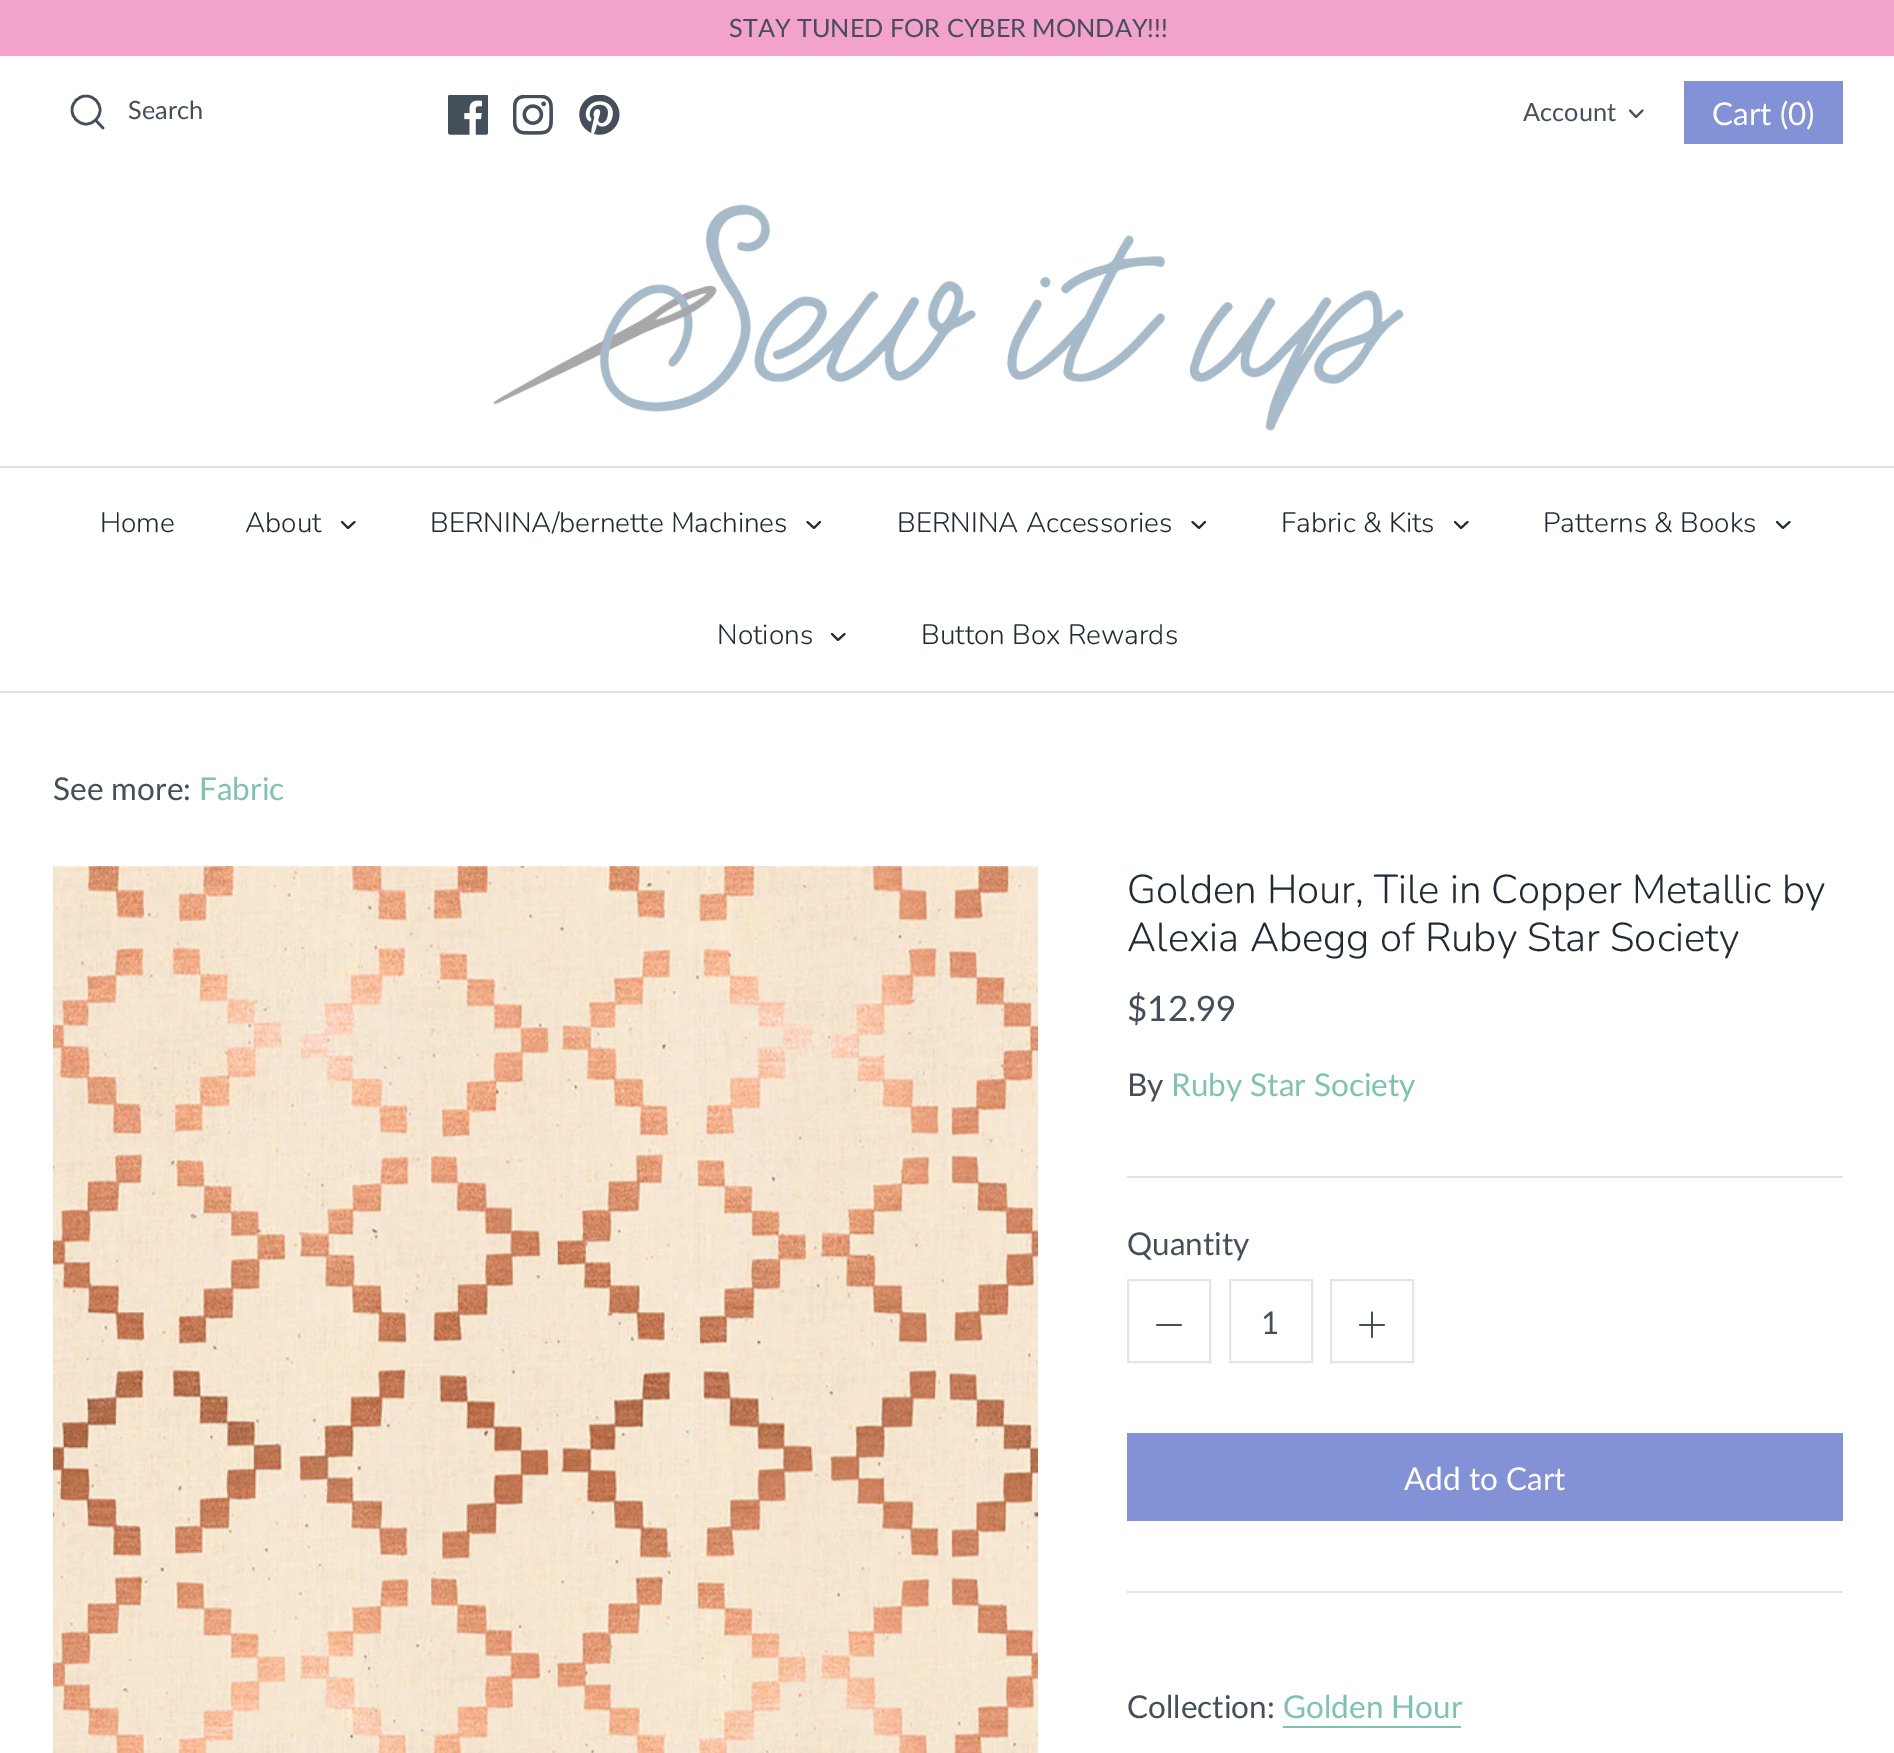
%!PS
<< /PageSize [1894 1753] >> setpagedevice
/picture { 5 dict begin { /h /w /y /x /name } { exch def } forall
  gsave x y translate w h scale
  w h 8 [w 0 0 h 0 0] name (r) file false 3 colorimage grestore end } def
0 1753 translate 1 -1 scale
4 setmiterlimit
1 setgray
0 0 1894 1753 rectfill
0.949 0.635 0.796 setrgbcolor
0 0 1894 56 rectfill
/Lato-Regular [25.25 0 0 -25.25 0 0] selectfont
0.271 0.31 0.357 setrgbcolor
729 37 moveto (STAY TUNED FOR CYBER MONDAY!!!) show
2.6 setlinewidth
newpath 86 110 14 0 360 arc closepath stroke
1 setlinecap
1 setlinejoin
newpath 103 128 moveto 95.5 120 lineto stroke
128 119 moveto (Search) show
(img1.rgb) 448 95 40 40 picture
(img2.rgb) 513 95 40 40 picture
(img3.rgb) 579 95 41 40 picture
1523 121 moveto (Account) show
2 setlinewidth
newpath 1630 110.5 moveto 1636 117 lineto 1642.5 110.5 lineto stroke
0.514 0.573 0.843 setrgbcolor
1684 81 159 63 rectfill
/Lato-Regular [31.5 0 0 -31.5 0 0] selectfont
1 setgray
1712 125 moveto (Cart \(0\)) show
(img4.rgb) 493 204 911 227 picture
0.875 0.89 0.91 setrgbcolor
0 691 1894 2 rectfill
0 466 1894 2 rectfill
/Nunito-Light [28 0 0 -28 0 0] selectfont
0.129 0.169 0.212 setrgbcolor
100 532 moveto (Home) show
245 532 moveto (About) show
newpath 342 522 moveto 348 528 lineto 354.5 522 lineto stroke
430 532 moveto (BERNINA/bernette Machines) show
newpath 807.5 522 moveto 814 528 lineto 820 522 lineto stroke
897 532 moveto (BERNINA Accessories) show
newpath 1192.5 522 moveto 1199 528 lineto 1205 522 lineto stroke
1281 532 moveto (Fabric & Kits) show
newpath 1455 522 moveto 1461 528 lineto 1467.5 522 lineto stroke
1543 532 moveto (Patterns & Books) show
newpath 1777 522 moveto 1783 528 lineto 1789.5 522 lineto stroke
717 644 moveto (Notions) show
newpath 832 634 moveto 838 640 lineto 844.5 634 lineto stroke
921 644 moveto (Button Box Rewards) show
/Lato-Regular [31.5 0 0 -31.5 0 0] selectfont
0.271 0.31 0.357 setrgbcolor
53 800 moveto (See more:) show
0.486 0.765 0.698 setrgbcolor
199 800 moveto (Fabric) show
(img5.rgb) 53 866 985 887 picture
0.886 setgray
1127 1176 716 2 rectfill
/Nunito-Light [40.25 0 0 -40.25 0 0] selectfont
0.129 0.169 0.212 setrgbcolor
1127 903 moveto (Golden Hour, Tile in Copper Metallic by) show
1127 951 moveto (Alexia Abegg of Ruby Star Society) show
/Lato-Regular [35 0 0 -35 0 0] selectfont
0.271 0.31 0.357 setrgbcolor
1127 1021 moveto ($12.99) show
/Lato-Regular [31.5 0 0 -31.5 0 0] selectfont
1127 1096 moveto (By) show
0.486 0.765 0.698 setrgbcolor
1171 1096 moveto (Ruby Star Society) show
0.886 setgray
1127 1591 716 2 rectfill
0.271 0.31 0.357 setrgbcolor
1127 1255 moveto (Quantity) show
0.89 0.898 0.902 setrgbcolor
0 setlinecap
0 setlinejoin
1128 1280 82 82 rectstroke
0.271 0.31 0.357 setrgbcolor
1.8 setlinewidth
1 setlinecap
1 setlinejoin
newpath 1157 1325 moveto 1181 1325 lineto stroke
0.89 0.898 0.902 setrgbcolor
2 setlinewidth
0 setlinecap
0 setlinejoin
1230 1280 82 82 rectstroke
0.271 0.31 0.357 setrgbcolor
1261 1334 moveto (1) show
0.89 0.898 0.902 setrgbcolor
1331 1280 82 82 rectstroke
0.271 0.31 0.357 setrgbcolor
1.8 setlinewidth
1 setlinecap
1 setlinejoin
newpath 1372 1312.5 moveto 1372 1337 lineto 1360 1325 moveto 1384 1325 lineto stroke
0.514 0.573 0.843 setrgbcolor
1127 1433 716 88 rectfill
1 setgray
1404 1490 moveto (Add to Cart) show
0.271 0.31 0.357 setrgbcolor
1127 1718 moveto (Collection:) show
0.486 0.765 0.698 setrgbcolor
1283 1718 moveto (Golden Hour) show
1283 1726 178 2 rectfill
showpage
